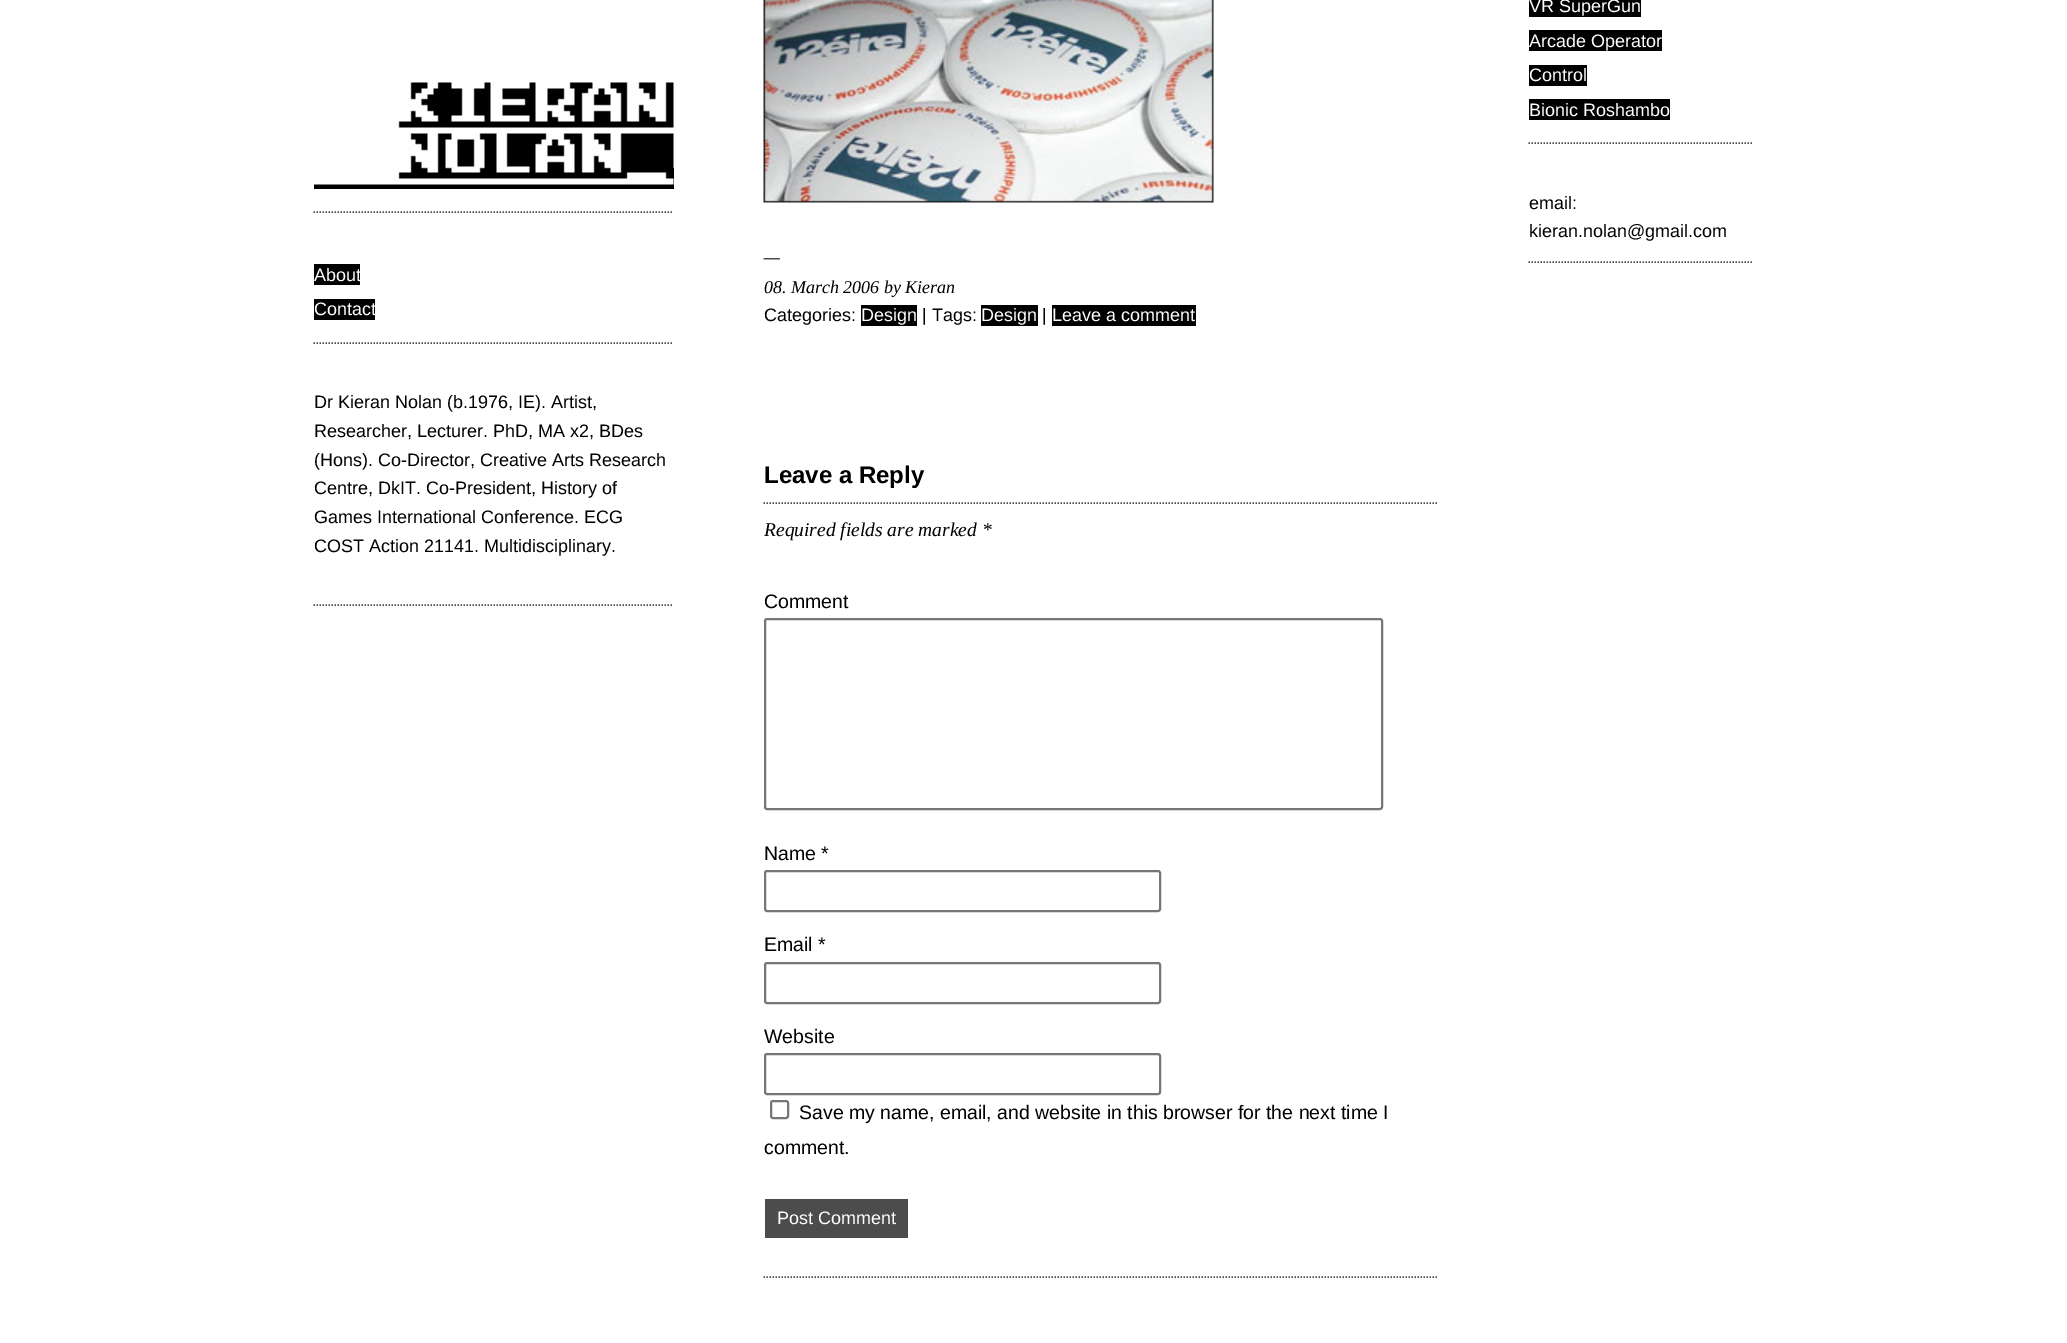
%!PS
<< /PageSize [2067 1343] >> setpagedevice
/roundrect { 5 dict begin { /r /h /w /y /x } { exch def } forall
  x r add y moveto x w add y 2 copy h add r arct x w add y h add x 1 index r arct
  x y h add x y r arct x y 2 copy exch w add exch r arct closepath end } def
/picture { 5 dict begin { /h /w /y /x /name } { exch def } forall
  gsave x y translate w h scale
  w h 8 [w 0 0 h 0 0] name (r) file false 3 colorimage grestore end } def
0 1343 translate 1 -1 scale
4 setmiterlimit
1 setgray
0 0 2067 1343 rectfill
0.298 setgray
1.5 setlinewidth
[1.5 1.5] 0 setdash
newpath 313.5 212 moveto 673.5 212 lineto stroke
0 setgray
314 168 360 21 rectfill
(img1.rgb) 314 82 360 103 picture
0.298 setgray
newpath 313.5 343 moveto 673.5 343 lineto stroke
0 setgray
314 264 46 21 rectfill
/LiberationSans-Regular [18 0 0 -18 0 0] selectfont
1 setgray
314 281 moveto (About) show
0 setgray
314 299 61 21 rectfill
1 setgray
314 315 moveto (Contact) show
0.298 setgray
newpath 313.5 605 moveto 673.5 605 lineto stroke
0 setgray
314 408 moveto (Dr Kieran Nolan \(b.1976, IE\). Artist,) show
314 437 moveto (Researcher, Lecturer. PhD, MA x2, BDes) show
314 466 moveto (\(Hons\). Co-Director, Creative Arts Research) show
314 494 moveto (Centre, DkIT. Co-President, History of) show
314 523 moveto (Games International Conference. ECG) show
314 552 moveto (COST Action 21141. Multidisciplinary.) show
0.298 setgray
newpath 1528.5 143 moveto 1753.5 143 lineto stroke
0 setgray
1529 0 112 17 rectfill
1 setgray
1529 12 moveto (VR SuperGun) show
0 setgray
1529 30 133 21 rectfill
1 setgray
1529 47 moveto (Arcade Operator) show
0 setgray
1529 65 58 21 rectfill
1 setgray
1529 81 moveto (Control) show
0 setgray
1529 99 141 21 rectfill
1 setgray
1529 116 moveto (Bionic Roshambo) show
0.298 setgray
newpath 1528.5 262 moveto 1753.5 262 lineto stroke
0 setgray
1529 209 moveto (email:) show
1529 237 moveto (kieran.nolan@gmail.com) show
0.298 setgray
newpath 763.5 1277 moveto 1438.5 1277 lineto stroke
(img2.rgb) 763 0 451 203 picture
(img3.rgb) 763 258 17 2 picture
/LiberationSerif-Italic [18 0 0 -18 0 0] selectfont
0 setgray
764 293 moveto (08. March 2006 by Kieran) show
/LiberationSans-Regular [18 0 0 -18 0 0] selectfont
764 321 moveto (Categories:) show
861 305 56 21 rectfill
1 setgray
861 321 moveto (Design) show
0 setgray
922 321 moveto (| Tags:) show
981 305 57 21 rectfill
1 setgray
981 321 moveto (Design) show
0 setgray
1042 321 moveto (|) show
1052 305 144 21 rectfill
1 setgray
1052 321 moveto (Leave a comment) show
0.298 setgray
newpath 763.5 503 moveto 1438.5 503 lineto stroke
/LiberationSans-Bold [24 0 0 -24 0 0] selectfont
0 setgray
764 483 moveto (Leave a Reply) show
/LiberationSerif-Italic [19.5 0 0 -19.5 0 0] selectfont
764 536 moveto (Required fields are marked *) show
/LiberationSans-Regular [19.5 0 0 -19.5 0 0] selectfont
764 608 moveto (Comment) show
0.463 setgray
2 setlinewidth
[] 0 setdash
765 619 617 190 2 roundrect stroke
0 setgray
764 860 moveto (Name *) show
0.463 setgray
765 871 395 40 2 roundrect stroke
0 setgray
764 951 moveto (Email *) show
0.463 setgray
765 963 395 40 2 roundrect stroke
0 setgray
764 1043 moveto (Website) show
0.463 setgray
765 1054 395 40 2 roundrect stroke
771 1101 17 17 2 roundrect stroke
0 setgray
799 1119 moveto (Save my name, email, and website in this browser for the next time I) show
764 1154 moveto (comment.) show
0.298 setgray
765 1199 143 39 rectfill
/LiberationSans-Regular [18 0 0 -18 0 0] selectfont
1 setgray
777 1224 moveto (Post Comment) show
showpage
